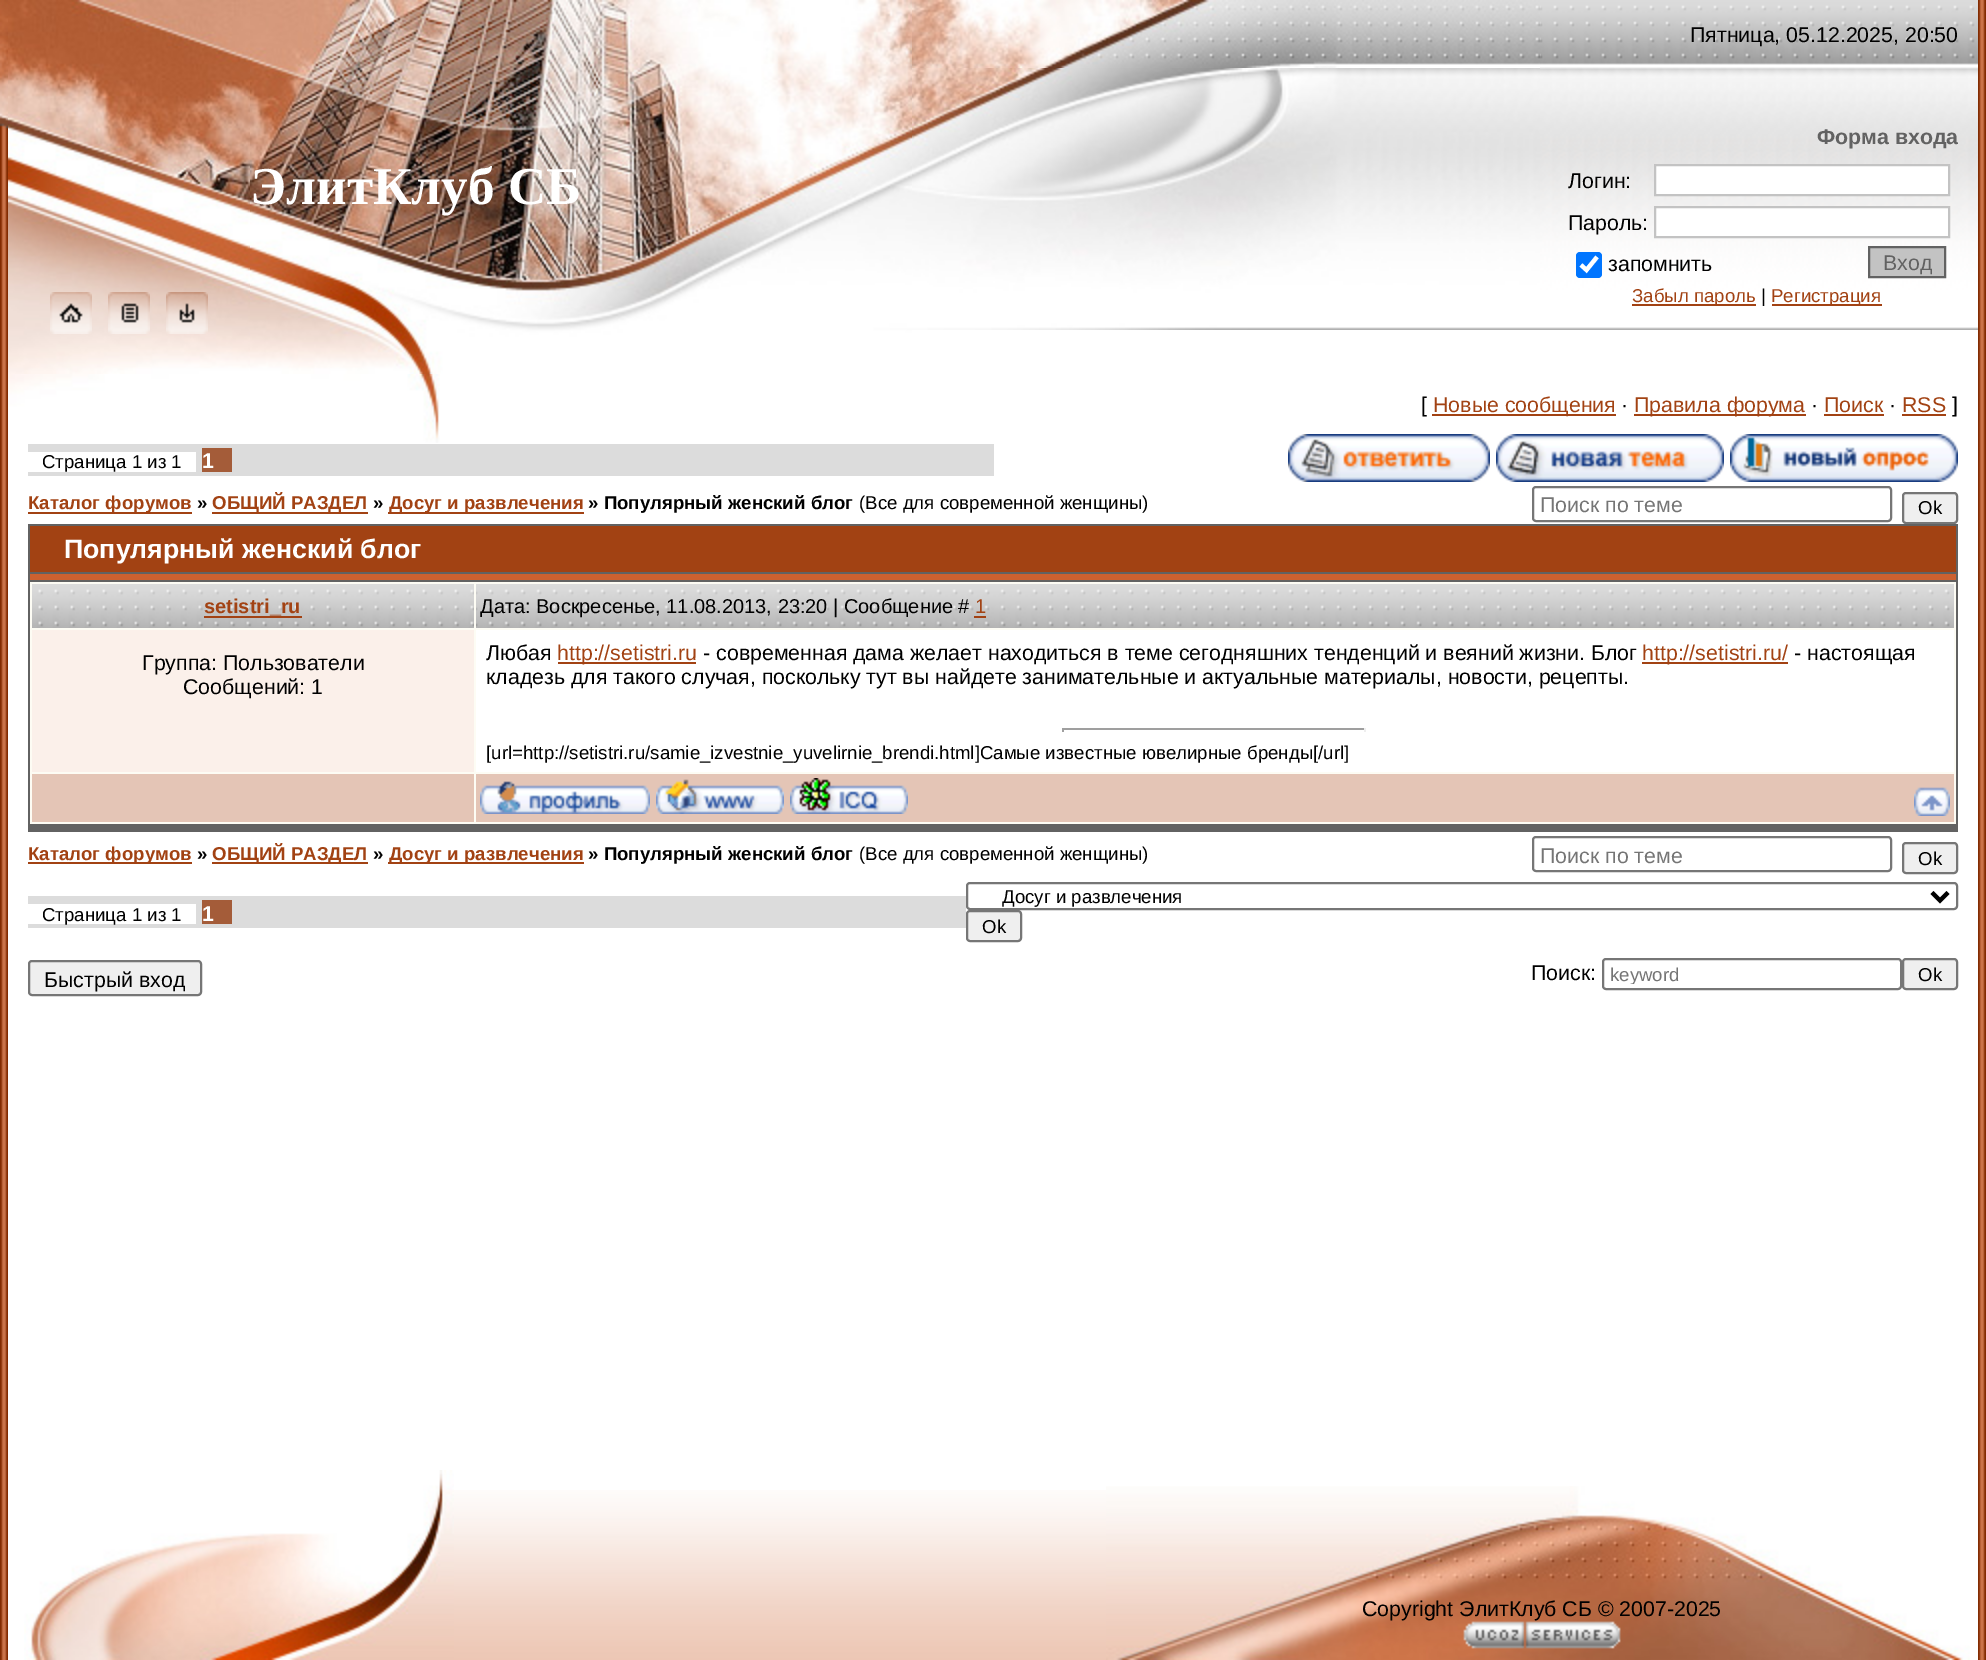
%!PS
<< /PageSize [1986 1660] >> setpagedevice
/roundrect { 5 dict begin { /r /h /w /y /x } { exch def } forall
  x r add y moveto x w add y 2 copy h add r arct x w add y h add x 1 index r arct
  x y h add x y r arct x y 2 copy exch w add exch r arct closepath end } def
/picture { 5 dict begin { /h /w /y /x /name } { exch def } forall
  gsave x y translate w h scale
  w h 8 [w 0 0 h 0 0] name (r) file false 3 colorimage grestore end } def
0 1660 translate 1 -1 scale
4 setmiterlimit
1 setgray
0 0 1986 1660 rectfill
(img1.rgb) 1540 0 438 330 picture
0.51 0.169 0.004 setrgbcolor
0 129 8 1531 rectfill
(img2.rgb) 1 129 6 1531 picture
(img3.rgb) 0 0 8 129 picture
(img4.rgb) 8 0 242 374 picture
(img5.rgb) 50 292 42 42 picture
(img6.rgb) 108 292 42 42 picture
(img7.rgb) 166 292 42 42 picture
(img8.rgb) 250 0 662 374 picture
/LiberationSerif-Bold [53.25 0 0 -53.25 0 0] selectfont
1 setgray
250 204 moveto (ЭлитКлуб СБ) show
(img9.rgb) 912 0 628 68 picture
/LiberationSans-Regular [21.33 0 0 -21.33 0 0] selectfont
0 setgray
1690 42 moveto (Пятница, 05.12.2025, 20:50) show
(img10.rgb) 912 68 628 262 picture
/LiberationSans-Bold [21.33 0 0 -21.33 0 0] selectfont
0.384 setgray
1817 144 moveto (Форма входа) show
/LiberationSans-Regular [21.33 0 0 -21.33 0 0] selectfont
0 setgray
1568 188 moveto (Логин:) show
1 setgray
newpath 1655 165 moveto 1949 165 lineto 1949 195 lineto 1655 195 lineto closepath gsave fill grestore
0.765 setgray
2 setlinewidth
stroke
0 setgray
1568 230 moveto (Пароль:) show
1 setgray
newpath 1655 207 moveto 1949 207 lineto 1949 237 lineto 1655 237 lineto closepath gsave fill grestore
0.765 setgray
stroke
0 0.459 1 setrgbcolor
1576 252 26 26 4 roundrect fill
1 setgray
4.2 setlinewidth
newpath 1581 265 moveto 1586.5 270 lineto 1597 257 lineto stroke
0 setgray
1608 271 moveto (запомнить) show
0.765 setgray
newpath 1869 247 moveto 1945 247 lineto 1945 277 lineto 1869 277 lineto closepath gsave fill grestore
0.384 setgray
2 setlinewidth
stroke
1883 270 moveto (Вход) show
0.635 0.259 0.075 setrgbcolor
1632 304 124 2 rectfill
/LiberationSans-Regular [18.65 0 0 -18.65 0 0] selectfont
1632 302 moveto (Забыл пароль) show
0 setgray
1761 302 moveto (|) show
0.635 0.259 0.075 setrgbcolor
1772 304 110 2 rectfill
1771 302 moveto (Регистрация) show
(img11.rgb) 8 374 432 69 picture
/LiberationSans-Regular [21.33 0 0 -21.33 0 0] selectfont
0 setgray
1421 412 moveto ([) show
0.635 0.259 0.075 setrgbcolor
1432 414 184 2 rectfill
1433 412 moveto (Новые сообщения) show
0 setgray
1621 412 moveto (·) show
0.635 0.259 0.075 setrgbcolor
1634 414 172 2 rectfill
1634 412 moveto (Правила форума) show
0 setgray
1811 412 moveto (·) show
0.635 0.259 0.075 setrgbcolor
1824 412 moveto (Поиск) show
1824 414 60 2 rectfill
0 setgray
1889 412 moveto (·) show
0.635 0.259 0.075 setrgbcolor
1902 412 moveto (RSS) show
1902 414 44 2 rectfill
0 setgray
1952 412 moveto (]) show
0.863 setgray
28 444 966 32 rectfill
1 setgray
28 452 168 20 rectfill
/LiberationSans-Regular [18.65 0 0 -18.65 0 0] selectfont
0 setgray
42 468 moveto (Страница 1 из 1) show
0.643 0.361 0.224 setrgbcolor
202 448 30 24 rectfill
/LiberationSans-Bold [21.33 0 0 -21.33 0 0] selectfont
1 setgray
202 468 moveto (1) show
(img12.rgb) 1288 434 202 48 picture
(img13.rgb) 1496 434 228 48 picture
(img14.rgb) 1730 434 228 48 picture
0.635 0.259 0.075 setrgbcolor
28 512 164 2 rectfill
/LiberationSans-Bold [18.65 0 0 -18.65 0 0] selectfont
28 509 moveto (Каталог форумов) show
0 setgray
197 509 moveto (») show
0.635 0.259 0.075 setrgbcolor
212 512 156 2 rectfill
212 509 moveto (ОБЩИЙ РАЗДЕЛ) show
0 setgray
373 509 moveto (») show
0.635 0.259 0.075 setrgbcolor
388 512 196 2 rectfill
389 509 moveto (Досуг и развлечения) show
0 setgray
588 509 moveto (» Популярный женский блог) show
/LiberationSans-Regular [18.65 0 0 -18.65 0 0] selectfont
859 509 moveto (\(Все для современной женщины\)) show
0.463 setgray
1533 487 358 34 3 roundrect stroke
/LiberationSans-Regular [21.33 0 0 -21.33 0 0] selectfont
0.459 setgray
1540 512 moveto (Поиск по теме) show
0.937 setgray
1903 493 54 30 3 roundrect gsave fill grestore
0.463 setgray
stroke
/LiberationSans-Regular [18.65 0 0 -18.65 0 0] selectfont
0 setgray
1918 514 moveto (Ok) show
0.384 setgray
28 524 1930 308 rectfill
0.635 0.259 0.075 setrgbcolor
30 526 1926 46 rectfill
/LiberationSans-Bold [26.7 0 0 -26.7 0 0] selectfont
1 setgray
64 558 moveto (Популярный женский блог) show
0.804 0.38 0.188 setrgbcolor
30 574 1926 6 rectfill
0.992 0.988 0.957 setrgbcolor
30 582 1926 242 rectfill
(img15.rgb) 32 584 442 44 picture
/LiberationSans-Bold [20 0 0 -20 0 0] selectfont
0.635 0.259 0.075 setrgbcolor
204 613 moveto (setistri_ru) show
204 616 98 2 rectfill
(img16.rgb) 476 584 1478 44 picture
/LiberationSans-Regular [20 0 0 -20 0 0] selectfont
0 setgray
480 613 moveto (Дата: Воскресенье, 11.08.2013, 23:20 | Сообщение #) show
0.635 0.259 0.075 setrgbcolor
975 613 moveto (1) show
974 616 12 2 rectfill
0.984 0.941 0.918 setrgbcolor
32 630 442 142 rectfill
/LiberationSans-Regular [21.33 0 0 -21.33 0 0] selectfont
0 setgray
142 670 moveto (Группа: Пользователи) show
183 694 moveto (Сообщений: 1) show
1 setgray
476 630 1478 142 rectfill
0 setgray
486 660 moveto (Любая) show
0.635 0.259 0.075 setrgbcolor
558 662 138 2 rectfill
557 660 moveto (http://setistri.ru) show
0 setgray
703 660 moveto (- современная дама желает находиться в теме сегодняшних тенденций и веяний жизни. Блог) show
0.635 0.259 0.075 setrgbcolor
1642 662 146 2 rectfill
1642 660 moveto (http://setistri.ru/) show
0 setgray
1794 660 moveto (- настоящая) show
486 684 moveto (кладезь для такого случая, поскольку тут вы найдете занимательные и актуальные материалы, новости, рецепты.) show
0.624 setgray
1062 728 304 2 rectfill
0.933 setgray
1364 728 2 4 rectfill
0.624 setgray
1062 728 2 4 rectfill
/LiberationSans-Regular [18.65 0 0 -18.65 0 0] selectfont
0 setgray
486 759 moveto ([url=http://setistri.ru/samie_izvestnie_yuvelirnie_brendi.html]Самые известные ювелирные бренды[/url]) show
0.894 0.773 0.714 setrgbcolor
32 774 442 48 rectfill
476 774 1478 48 rectfill
(img17.rgb) 480 781 170 33 picture
(img18.rgb) 656 779 128 35 picture
(img19.rgb) 790 778 118 36 picture
(img20.rgb) 1914 787 36 29 picture
0.635 0.259 0.075 setrgbcolor
28 862 164 2 rectfill
/LiberationSans-Bold [18.65 0 0 -18.65 0 0] selectfont
28 860 moveto (Каталог форумов) show
0 setgray
197 860 moveto (») show
0.635 0.259 0.075 setrgbcolor
212 862 156 2 rectfill
212 860 moveto (ОБЩИЙ РАЗДЕЛ) show
0 setgray
373 860 moveto (») show
0.635 0.259 0.075 setrgbcolor
388 862 196 2 rectfill
389 860 moveto (Досуг и развлечения) show
0 setgray
588 860 moveto (» Популярный женский блог) show
/LiberationSans-Regular [18.65 0 0 -18.65 0 0] selectfont
859 860 moveto (\(Все для современной женщины\)) show
0.463 setgray
1533 837 358 34 3 roundrect stroke
/LiberationSans-Regular [21.33 0 0 -21.33 0 0] selectfont
0.459 setgray
1540 863 moveto (Поиск по теме) show
0.937 setgray
1903 843 54 30 3 roundrect gsave fill grestore
0.463 setgray
stroke
/LiberationSans-Regular [18.65 0 0 -18.65 0 0] selectfont
0 setgray
1918 865 moveto (Ok) show
0.863 setgray
28 896 938 32 rectfill
1 setgray
28 904 168 20 rectfill
0 setgray
42 921 moveto (Страница 1 из 1) show
0.643 0.361 0.224 setrgbcolor
202 900 30 24 rectfill
/LiberationSans-Bold [21.33 0 0 -21.33 0 0] selectfont
1 setgray
202 921 moveto (1) show
0.463 setgray
967 883 990 26 3 roundrect stroke
0 setgray
4 setlinewidth
newpath 1932 892.5 moveto 1940 900.5 lineto 1948 892.5 lineto stroke
/LiberationSans-Regular [18.65 0 0 -18.65 0 0] selectfont
1002 903 moveto (Досуг и развлечения) show
0.937 setgray
967 911 54 30 3 roundrect gsave fill grestore
0.463 setgray
2 setlinewidth
stroke
0 setgray
982 933 moveto (Ok) show
0.937 setgray
29 961 172 34 3 roundrect gsave fill grestore
0.463 setgray
stroke
/LiberationSans-Regular [21.33 0 0 -21.33 0 0] selectfont
0 setgray
44 987 moveto (Быстрый вход) show
1531 980 moveto (Поиск:) show
0.463 setgray
1603 959 298 30 3 roundrect stroke
gsave
1610 964 284 20 rectclip
/LiberationSans-Regular [18.65 0 0 -18.65 0 0] selectfont
0.459 setgray
1610 981 moveto (keyword) show
grestore
0.937 setgray
1903 959 54 30 3 roundrect gsave fill grestore
0.463 setgray
stroke
/LiberationSans-Regular [18.65 0 0 -18.65 0 0] selectfont
0 setgray
1918 981 moveto (Ok) show
0.51 0.169 0.004 setrgbcolor
1978 0 8 1660 rectfill
(img21.rgb) 1979 0 6 1660 picture
(img22.rgb) 24 1470 430 190 picture
(img23.rgb) 454 1490 652 170 picture
(img24.rgb) 1106 1486 864 174 picture
/LiberationSans-Regular [21.33 0 0 -21.33 0 0] selectfont
0 setgray
1362 1616 moveto (Copyright ЭлитКлуб СБ © 2007-2025) show
(img25.rgb) 1463 1621 158 28 picture
showpage
